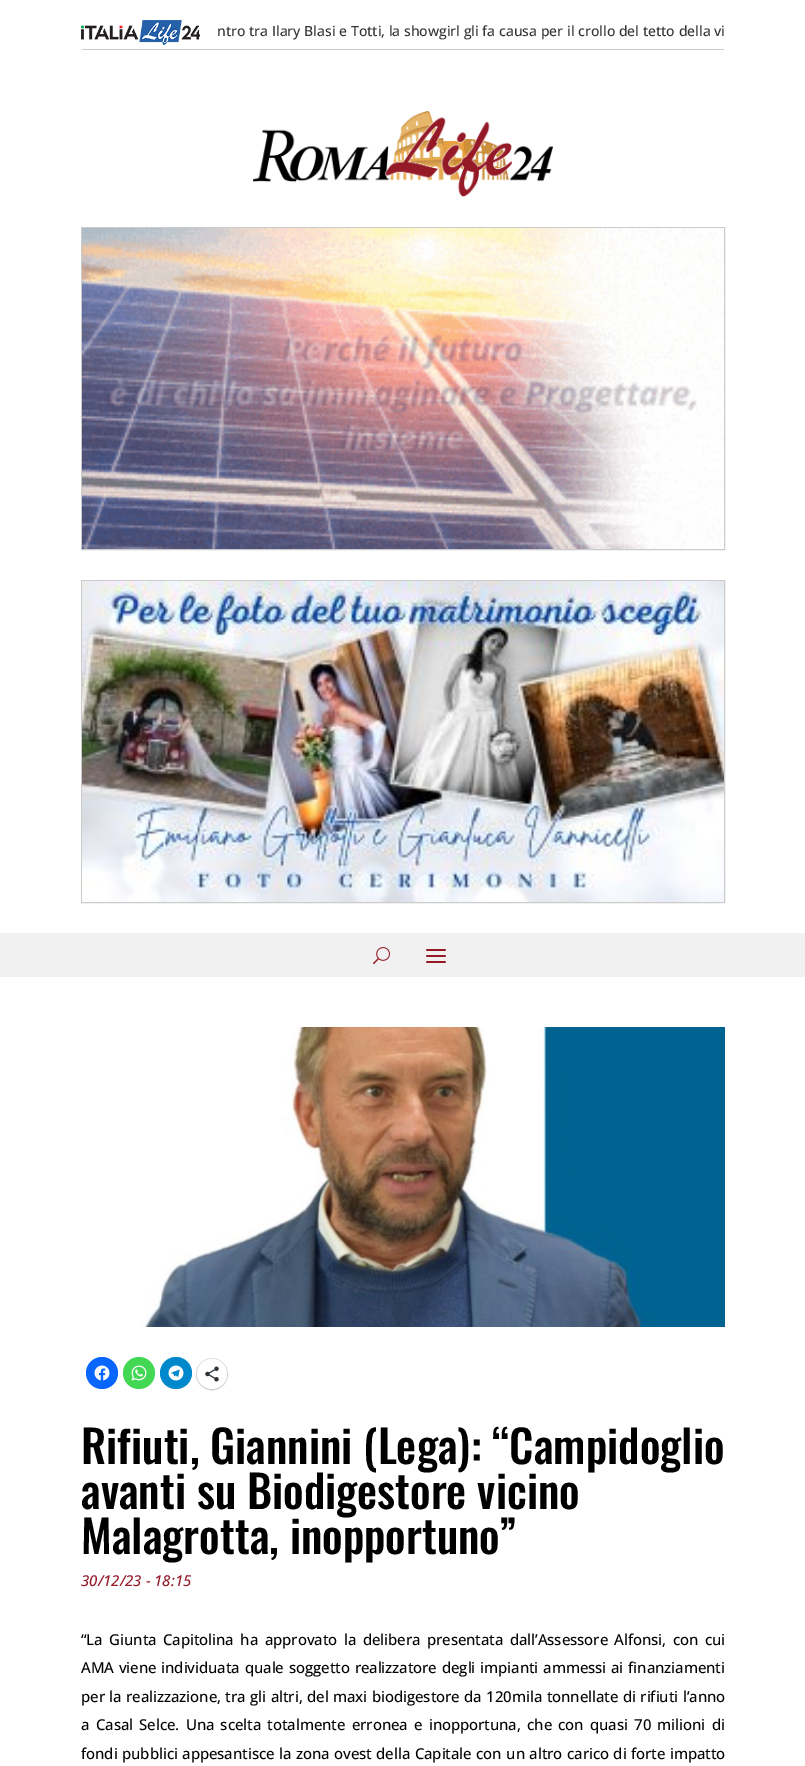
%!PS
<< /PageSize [805 1766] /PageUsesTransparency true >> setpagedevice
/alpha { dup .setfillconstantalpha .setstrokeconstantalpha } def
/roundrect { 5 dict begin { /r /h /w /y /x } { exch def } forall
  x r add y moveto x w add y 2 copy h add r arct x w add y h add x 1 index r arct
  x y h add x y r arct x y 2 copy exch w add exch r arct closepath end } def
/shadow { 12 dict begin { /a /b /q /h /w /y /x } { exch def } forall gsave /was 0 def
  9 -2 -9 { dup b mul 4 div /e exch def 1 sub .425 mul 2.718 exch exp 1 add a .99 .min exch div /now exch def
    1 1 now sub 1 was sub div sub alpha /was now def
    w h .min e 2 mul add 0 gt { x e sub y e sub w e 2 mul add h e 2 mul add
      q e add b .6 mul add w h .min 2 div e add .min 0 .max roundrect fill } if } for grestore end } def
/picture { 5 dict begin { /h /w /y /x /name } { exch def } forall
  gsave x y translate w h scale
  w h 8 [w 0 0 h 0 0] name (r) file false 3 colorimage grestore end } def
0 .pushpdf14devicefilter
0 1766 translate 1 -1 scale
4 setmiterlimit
1 setgray
0 0 805 1766 rectfill
0.8 setgray
82 49 642 1 rectfill
(img1.rgb) 81 20 119 25 picture
/OpenSans-Medium [14 0 0 -14 0 0] selectfont
0.2 setgray
217 36 moveto (ntro tra Ilary Blasi e Totti, la showgirl gli fa causa per il crollo del tetto della vi) show
(img2.rgb) 253 111 300 86 picture
0.8 setgray
81.5 227.5 643 322 rectstroke
(img3.rgb) 82 228 642 321 picture
81.5 580.5 643 322 rectstroke
(img4.rgb) 82 581 642 321 picture
0.945 setgray
0 933 805 44 rectfill
(img5.rgb) 373 947 17 18 picture
(img6.rgb) 426 949 20 14 picture
(img7.rgb) 142 1027 583 300 picture
0.031 0.4 1 setrgbcolor
newpath 102 1373 16 0 360 arc closepath fill
(img8.rgb) 94 1365 16 16 picture
0.263 0.847 0.329 setrgbcolor
newpath 139 1373 16 0 360 arc closepath fill
(img9.rgb) 131 1365 16 16 picture
0 0.533 0.8 setrgbcolor
newpath 176 1373 16 0 360 arc closepath fill
(img10.rgb) 168 1365 16 16 picture
0.878 setgray
newpath 212 1374 15.5 0 360 arc closepath stroke
0 setgray
197 1360 30 30 15 1 0.12 shadow
1 setgray
newpath 212 1374 15 0 360 arc closepath fill
(img11.rgb) 205 1366 14 16 picture
/Oswald-Medium [45 0 0 -45 0 0] selectfont
0 setgray
81 1464 moveto (Rifiuti, Giannini \(Lega\): “Campidoglio) show
81 1509 moveto (avanti su Biodigestore vicino) show
81 1554 moveto (Malagrotta, inopportuno”) show
/OpenSans-MediumItalic [15 0 0 -15 0 0] selectfont
0.584 0.102 0.157 setrgbcolor
81 1586 moveto (30/12/23 - 18:15) show
/OpenSans-Medium [15 0 0 -15 0 0] selectfont
0 setgray
81 1645 moveto 2.75 0 32 -0.1 0 (“La Giunta Capitolina ha approvato la delibera presentata dall’Assessore Alfonsi, con cui) awidthshow
81 1673 moveto 1.1 0 32 -0.1 0 (AMA viene individuata quale soggetto realizzatore degli impianti ammessi ai finanziamenti) awidthshow
81 1702 moveto 0.75 0 32 -0.1 0 (per la realizzazione, tra gli altri, del maxi biodigestore da 120mila tonnellate di rifiuti l’anno) awidthshow
81 1730 moveto 2.5 0 32 -0.1 0 (a Casal Selce. Una scelta totalmente erronea e inopportuna, che con quasi 70 milioni di) awidthshow
81 1759 moveto 0.75 0 32 -0.1 0 (fondi pubblici appesantisce la zona ovest della Capitale con un altro carico di forte impatto) awidthshow
.poppdf14devicefilter showpage
